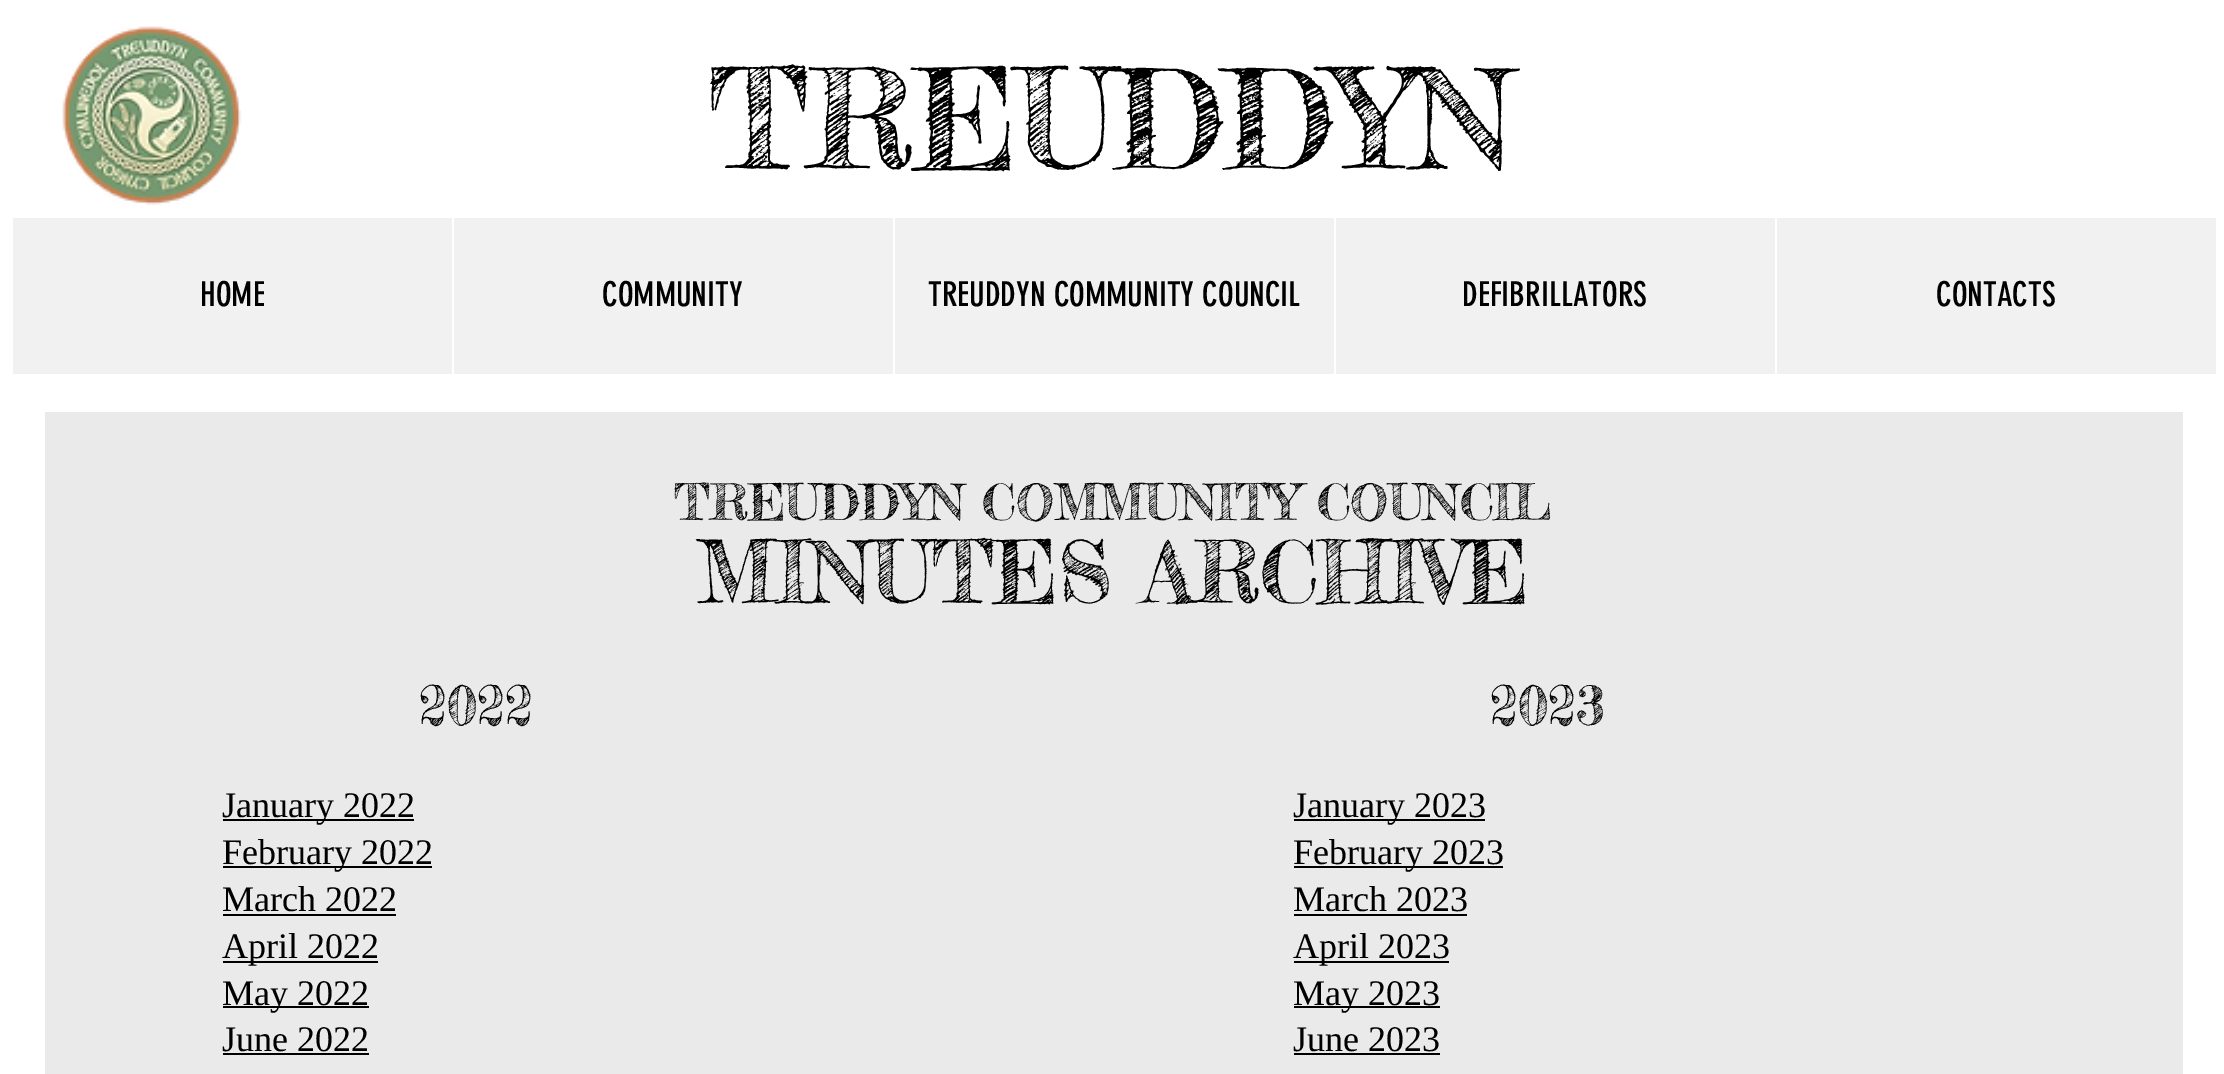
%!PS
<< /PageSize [2224 1074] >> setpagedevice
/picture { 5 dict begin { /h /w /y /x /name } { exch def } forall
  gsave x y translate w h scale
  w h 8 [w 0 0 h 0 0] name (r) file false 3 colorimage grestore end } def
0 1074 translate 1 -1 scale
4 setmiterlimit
1 setgray
0 0 2224 1074 rectfill
(img1.rgb) 62 26 180 180 picture
/FrederickatheGreat-Regular [137.25 0 0 -137.25 0 0] selectfont
0 setgray
709 169 moveto (TREUDDYN) show
0.945 setgray
13 218 2203 156 rectfill
/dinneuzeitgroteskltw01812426-Regular [33.75 0 0 -33.75 0 0] selectfont
0 setgray
200 306 moveto (HOME) show
1 setgray
452 218 2 156 rectfill
0 setgray
602 306 moveto (COMMUNITY) show
1 setgray
893 218 2 156 rectfill
0 setgray
928 306 moveto (TREUDDYN COMMUNITY COUNCIL) show
1 setgray
1334 218 2 156 rectfill
0 setgray
1462 306 moveto (DEFIBRILLATORS) show
1 setgray
1775 218 2 156 rectfill
0 setgray
1936 306 moveto (CONTACTS) show
0.918 setgray
45 412 2138 662 rectfill
/FrederickatheGreat-Regular [49.5 0 0 -49.5 0 0] selectfont
0 setgray
674 520 moveto (TREUDDYN COMMUNITY COUNCIL) show
/FrederickatheGreat-Regular [85.5 0 0 -85.5 0 0] selectfont
697 603 moveto (MINUTES ARCHIVE) show
/FrederickatheGreat-Regular [54 0 0 -54 0 0] selectfont
419 725 moveto (2022) show
1490 725 moveto (2023) show
223 819 191 2 rectfill
/LiberationSerif-Regular [36 0 0 -36 0 0] selectfont
222 817 moveto (January 2022) show
223 866 209 2 rectfill
222 864 moveto (February 2022) show
222 911 moveto (March 2022) show
223 914 173 2 rectfill
223 961 155 2 rectfill
222 958 moveto (April 2022) show
223 1006 146 2 rectfill
222 1005 moveto (May 2022) show
222 1051 moveto (June 2022) show
223 1053 146 2 rectfill
1294 819 191 2 rectfill
1293 817 moveto (January 2023) show
1294 866 209 2 rectfill
1293 864 moveto (February 2023) show
1293 911 moveto (March 2023) show
1294 914 173 2 rectfill
1294 961 155 2 rectfill
1293 958 moveto (April 2023) show
1294 1006 146 2 rectfill
1293 1005 moveto (May 2023) show
1293 1051 moveto (June 2023) show
1294 1053 146 2 rectfill
showpage
